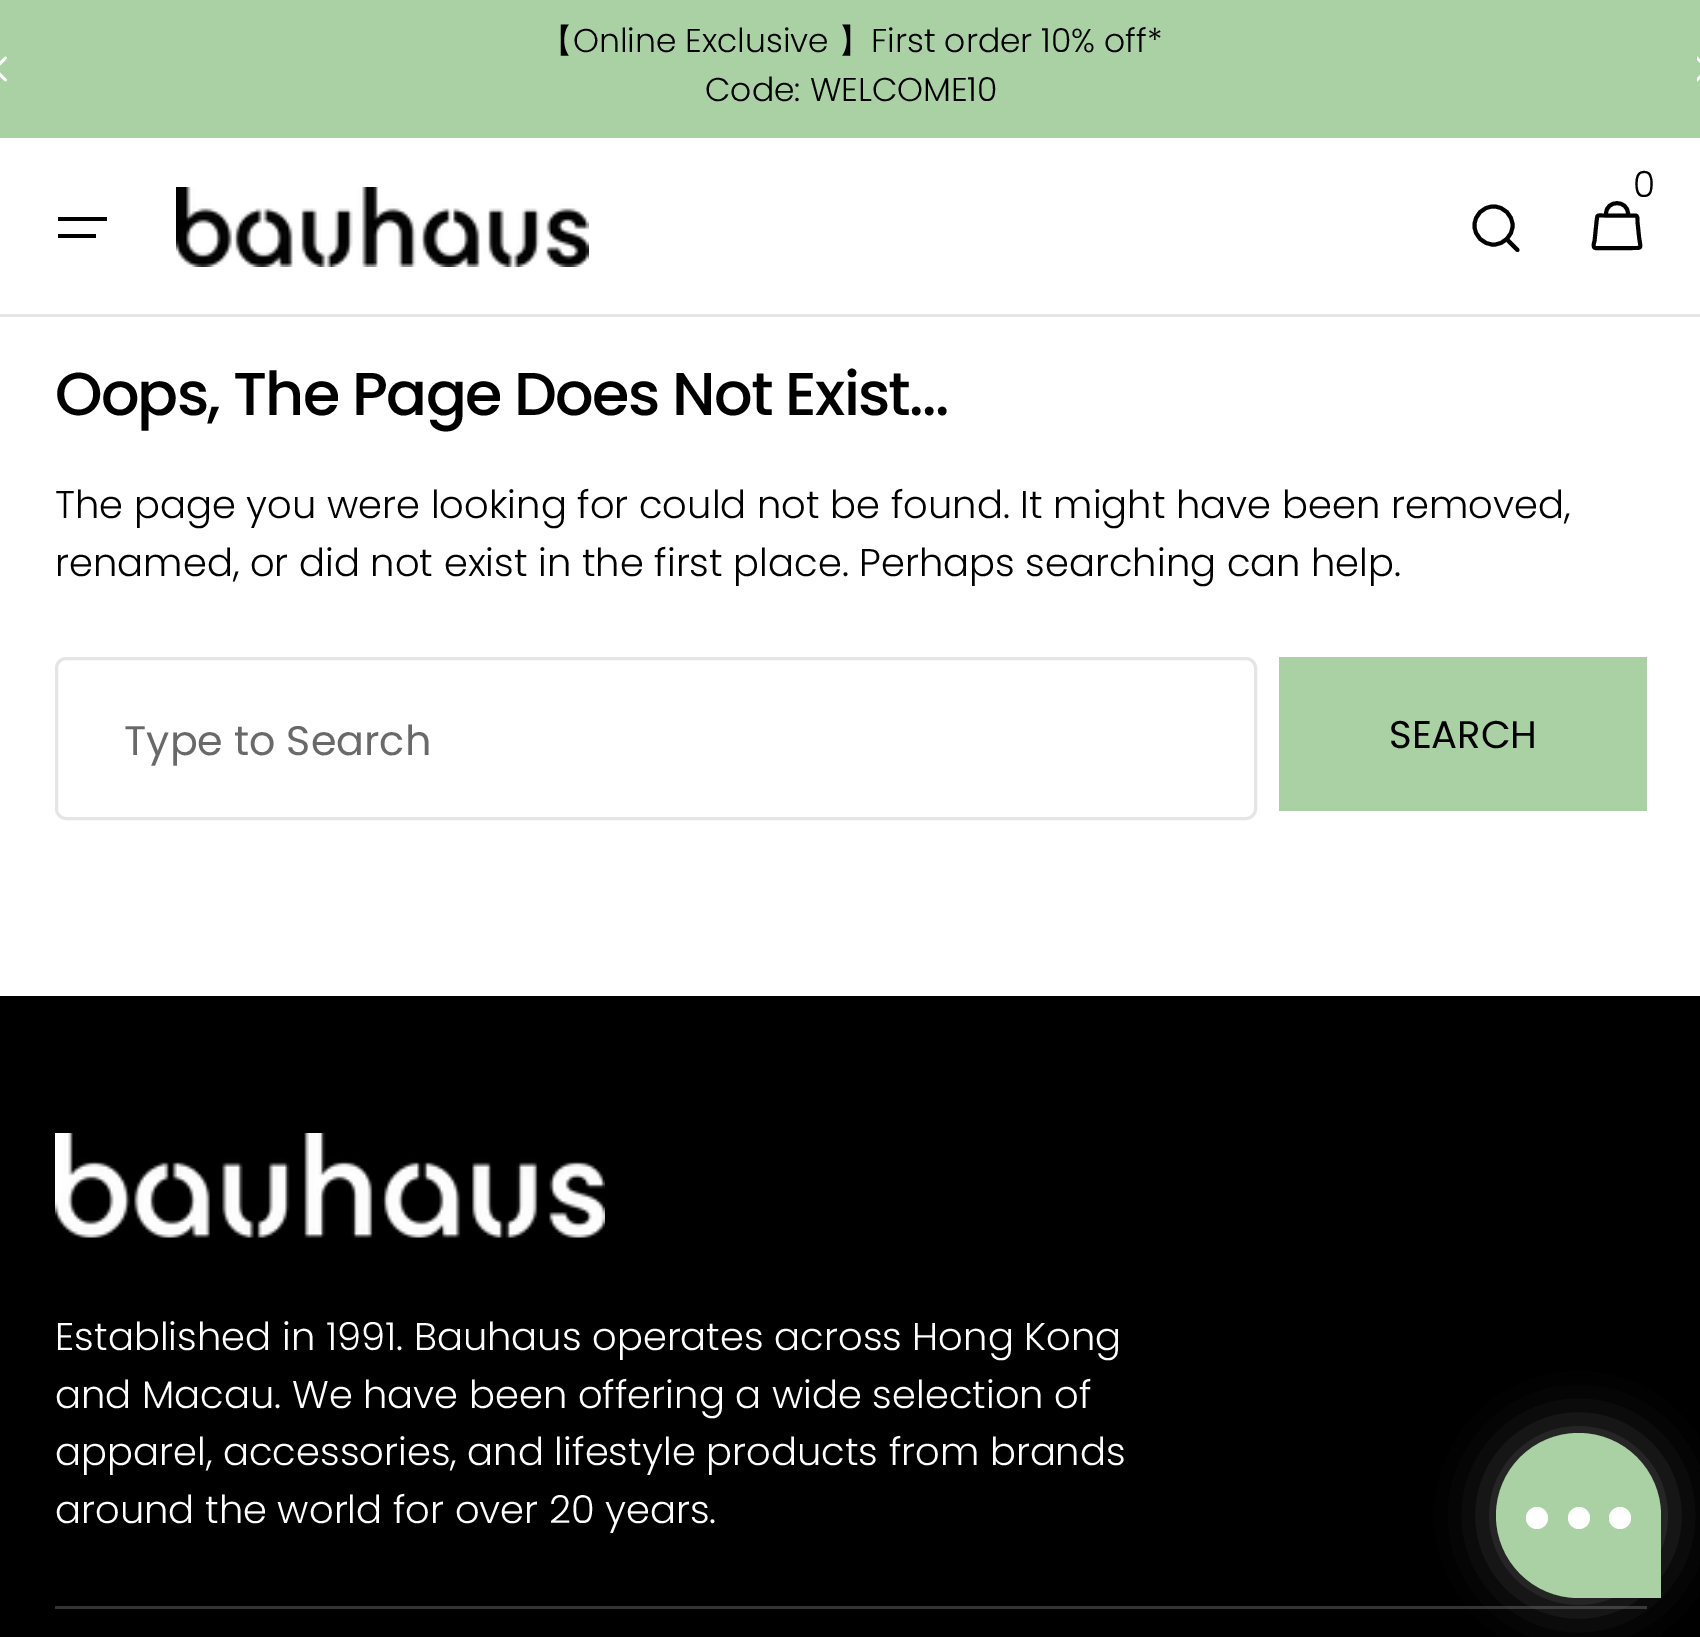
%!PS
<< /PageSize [1700 1637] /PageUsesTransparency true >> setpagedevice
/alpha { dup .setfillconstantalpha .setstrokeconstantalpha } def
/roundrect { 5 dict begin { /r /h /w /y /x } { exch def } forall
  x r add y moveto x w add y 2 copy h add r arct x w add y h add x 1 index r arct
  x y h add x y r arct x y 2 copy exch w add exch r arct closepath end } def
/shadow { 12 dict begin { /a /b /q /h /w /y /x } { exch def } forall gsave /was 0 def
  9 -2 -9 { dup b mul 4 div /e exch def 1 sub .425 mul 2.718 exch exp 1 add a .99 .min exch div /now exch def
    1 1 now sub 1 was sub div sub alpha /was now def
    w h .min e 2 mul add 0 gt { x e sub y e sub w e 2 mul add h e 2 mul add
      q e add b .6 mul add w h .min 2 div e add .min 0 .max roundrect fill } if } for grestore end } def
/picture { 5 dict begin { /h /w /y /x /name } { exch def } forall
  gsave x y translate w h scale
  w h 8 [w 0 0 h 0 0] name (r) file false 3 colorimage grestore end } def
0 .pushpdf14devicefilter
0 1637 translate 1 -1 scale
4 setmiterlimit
1 setgray
0 0 1700 1637 rectfill
0.667 0.82 0.643 setrgbcolor
0 0 1700 138 rectfill
/WenQuanYiZenHei-Medium [33 0 0 -33 0 0] selectfont
0 setgray
540 52 moveto (【) show
/Poppins-Light [33 0 0 -33 0 0] selectfont
573 52 moveto (Online Exclusive) show
/WenQuanYiZenHei-Medium [33 0 0 -33 0 0] selectfont
838 52 moveto (】) show
/Poppins-Light [33 0 0 -33 0 0] selectfont
871 52 moveto (First order 10% off*) show
705 101 moveto (Code: WELCOME10) show
1 setgray
2.8 setlinewidth
1 setlinecap
1 setlinejoin
newpath 5.5 80 moveto -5.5 69 lineto 5.5 58 lineto stroke
gsave
1697 44 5 50 rectclip
newpath 1697 58 moveto 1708 69 lineto 1697 80 lineto stroke
grestore
0 setgray
58 217 49 4 rectfill
58 234 38 4 rectfill
(img1.rgb) 176 187 413 80 picture
/Poppins-Light [36 0 0 -36 0 0] selectfont
1633 197 moveto (0) show
3.9 setlinewidth
newpath 1635.5 215.5 moveto 1605 215.5 lineto 1596.5 215.5 1597.5 214 1596.5 222 curveto 1594.5 241.5 lineto 1594 242 1592.5 248 1595.5 248 curveto 1631.5 248 lineto 1643 248 1640.5 249 1639 236.5 curveto 1637.5 222 lineto 1637.5 221 1638 215.5 1635.5 215.5 curveto closepath 1606 214 moveto 1606 199.5 1628 199.5 1628 214 curveto stroke
newpath 1493.5 244.5 moveto 1504 244.5 1512.5 236 1512.5 225.5 curveto 1512.5 215 1504 206.5 1493.5 206.5 curveto 1483 206.5 1474.5 215 1474.5 225.5 curveto 1474.5 236 1483 244.5 1493.5 244.5 curveto closepath 1506.5 239 moveto 1517.5 250 lineto stroke
0.898 setgray
0 314 1700 3 rectfill
/Poppins-Medium [60.5 0 0 -60.5 0 0] selectfont
0 setgray
55 415 moveto -1.8 0 (Oops, The Page Does Not Exist...) ashow
/Poppins-Light [38.5 0 0 -38.5 0 0] selectfont
55 518 moveto (The page you were looking for could not be found. It might have been removed,) show
55 576 moveto (renamed, or did not exist in the first place. Perhaps searching can help.) show
0.898 setgray
3 setlinewidth
0 setlinecap
0 setlinejoin
56.5 658.5 1199 160 9.5 roundrect stroke
/Poppins-Regular [41.25 0 0 -41.25 0 0] selectfont
0.412 setgray
124 755 moveto (Type to Search) show
0.667 0.82 0.643 setrgbcolor
1279 657 368 154 rectfill
/Poppins-Regular [38.5 0 0 -38.5 0 0] selectfont
0 setgray
1389 748 moveto (SEARCH) show
0 996 1700 641 rectfill
(img2.rgb) 55 1133 550 105 picture
/Poppins-Light [38.5 0 0 -38.5 0 0] selectfont
1 setgray
55 1350 moveto (Established in 1991. Bauhaus operates across Hong Kong) show
55 1408 moveto (and Macau. We have been offering a wide selection of) show
55 1465 moveto (apparel, accessories, and lifestyle products from brands) show
55 1523 moveto (around the world for over 20 years.) show
0.2 setgray
55 1606 1592 3 rectfill
0.467 setgray
1496 1433 165 165 82.5 27.5 0.64 shadow
0.667 0.82 0.643 setrgbcolor
newpath 1578.5 1433 moveto 1624 1433 1661 1470 1661 1515.5 curveto 1661 1598 lineto 1578.5 1598 lineto 1533 1598 1496 1561 1496 1515.5 curveto 1496 1470 1533 1433 1578.5 1433 curveto closepath fill
1 setgray
newpath 1537 1518 11 0 360 arc closepath fill
newpath 1579 1518 11 0 360 arc closepath fill
newpath 1620 1518 11 0 360 arc closepath fill
.poppdf14devicefilter showpage
